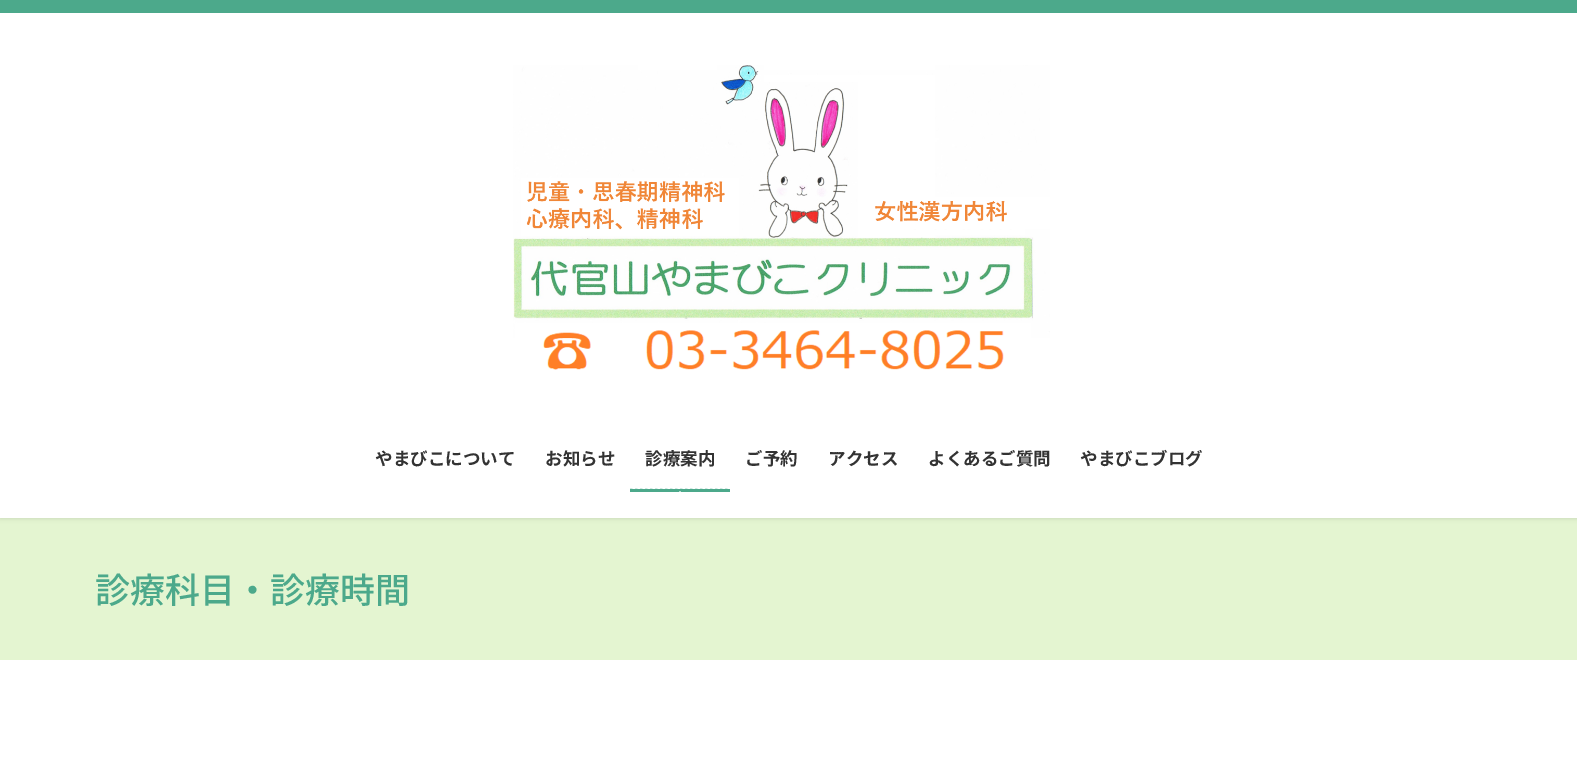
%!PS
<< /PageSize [1577 783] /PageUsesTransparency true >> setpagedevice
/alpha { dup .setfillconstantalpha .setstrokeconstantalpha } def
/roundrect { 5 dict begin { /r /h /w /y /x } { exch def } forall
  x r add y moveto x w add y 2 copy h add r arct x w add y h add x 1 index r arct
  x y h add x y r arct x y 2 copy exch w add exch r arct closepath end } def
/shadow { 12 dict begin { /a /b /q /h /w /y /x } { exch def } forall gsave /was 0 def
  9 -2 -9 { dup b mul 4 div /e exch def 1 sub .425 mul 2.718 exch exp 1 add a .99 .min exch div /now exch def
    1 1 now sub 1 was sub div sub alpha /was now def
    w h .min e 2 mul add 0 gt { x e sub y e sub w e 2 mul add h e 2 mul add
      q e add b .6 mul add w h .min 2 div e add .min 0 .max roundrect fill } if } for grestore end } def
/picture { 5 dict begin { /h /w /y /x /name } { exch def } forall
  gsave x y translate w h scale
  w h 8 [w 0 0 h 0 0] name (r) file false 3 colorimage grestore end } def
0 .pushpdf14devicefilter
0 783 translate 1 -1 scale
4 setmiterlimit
1 setgray
0 0 1577 783 rectfill
0.894 0.961 0.82 setrgbcolor
0 518 1577 142 rectfill
0 setgray
0 1 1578 518 0 2 0.1 shadow
1 setgray
0 13 1577 505 rectfill
0.298 0.663 0.545 setrgbcolor
0 0 1577 13 rectfill
(img1.rgb) 513 65 537 305 picture
/NotoSansJP-Bold [17.5 0 0 -17.5 0 0] selectfont
0.2 setgray
375 465 moveto (やまびこについて) show
545 465 moveto (お知らせ) show
0.298 0.663 0.545 setrgbcolor
630 489 100 3 rectfill
0.2 setgray
645 465 moveto (診療案内) show
0.298 0.663 0.545 setrgbcolor
2.5 setlinewidth
[2.5 2.5] 0 setdash
newpath 630 490 moveto 730 490 lineto stroke
1 setgray
newpath 692.5 504 moveto 667.5 504 lineto 680 491 lineto closepath fill
0.2 setgray
745 465 moveto (ご予約) show
828 465 moveto (アクセス) show
928 465 moveto (よくあるご質問) show
1080 465 moveto (やまびこブログ) show
/NotoSansJP-Medium [35 0 0 -35 0 0] selectfont
0.298 0.663 0.545 setrgbcolor
95 603 moveto (診療科目・診療時間) show
.poppdf14devicefilter showpage
